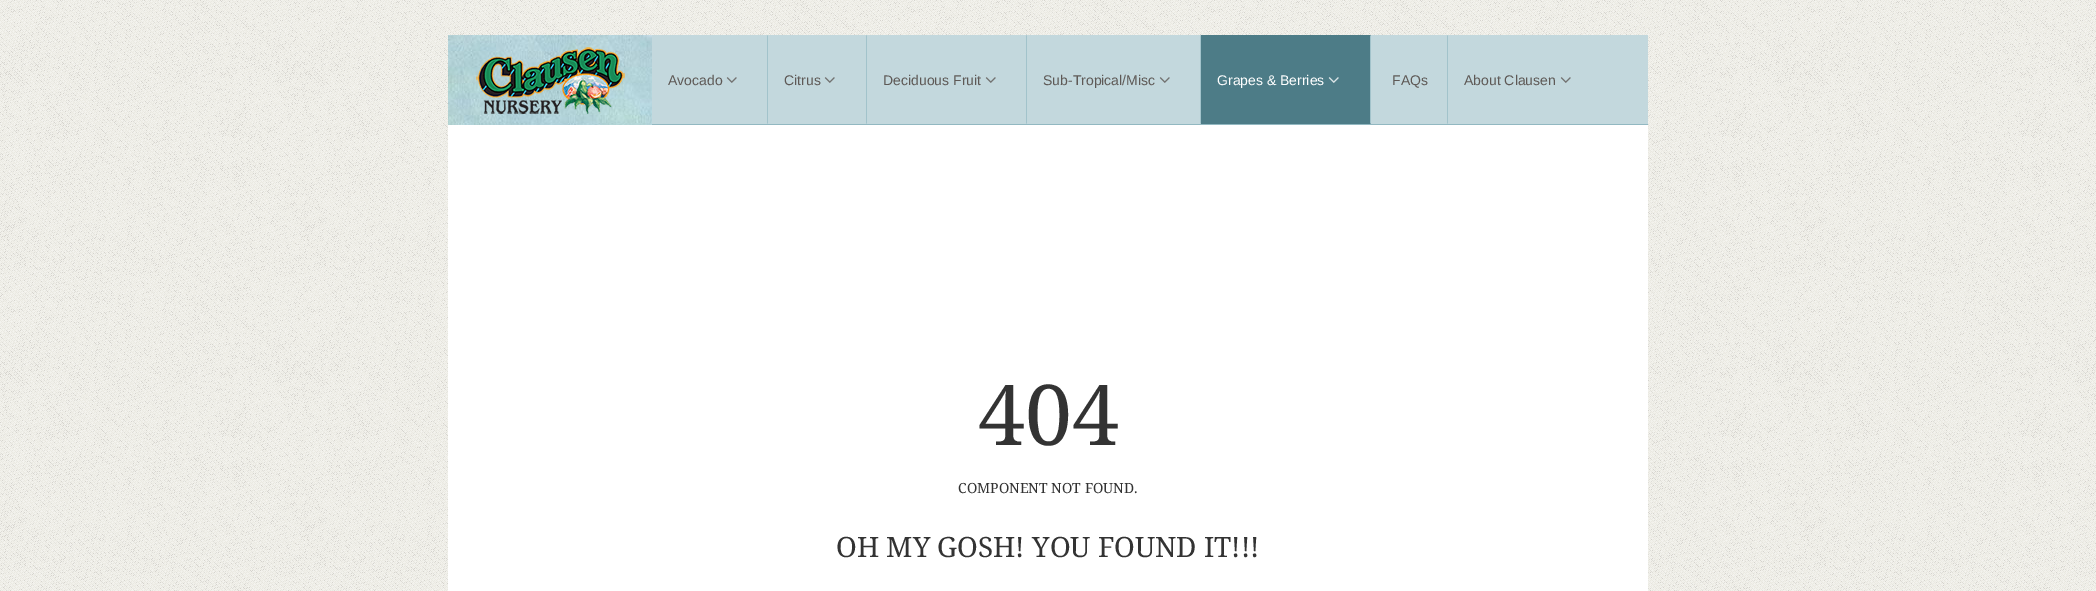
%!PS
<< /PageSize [2096 591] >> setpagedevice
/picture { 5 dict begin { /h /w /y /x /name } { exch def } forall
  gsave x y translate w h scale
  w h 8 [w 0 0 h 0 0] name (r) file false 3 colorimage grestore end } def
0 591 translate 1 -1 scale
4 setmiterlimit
0.918 0.914 0.882 setrgbcolor
0 0 2096 591 rectfill
(img1.rgb) 0 0 2096 591 picture
0.765 0.847 0.867 setrgbcolor
652 35 996 89 rectfill
(img2.rgb) 448 35 204 90 picture
(img3.rgb) 476 47 149 67 picture
0.573 0.722 0.757 setrgbcolor
652 124 996 1 rectfill
0.635 0.765 0.796 setrgbcolor
newpath 768 35 moveto 768 124 lineto 767 123 lineto 767 36 lineto closepath fill
/LiberationSans-Regular [14 0 0 -14 0 0] selectfont
0.369 0.349 0.337 setrgbcolor
668 85 moveto (Avocado) show
(img4.rgb) 726 77 11 6 picture
0.635 0.765 0.796 setrgbcolor
newpath 867 35 moveto 867 124 lineto 866 123 lineto 866 36 lineto closepath fill
0.369 0.349 0.337 setrgbcolor
784 85 moveto (Citrus) show
(img4.rgb) 824 77 11 6 picture
0.635 0.765 0.796 setrgbcolor
newpath 1027 35 moveto 1027 124 lineto 1026 123 lineto 1026 36 lineto closepath fill
0.369 0.349 0.337 setrgbcolor
883 85 moveto (Deciduous Fruit) show
(img4.rgb) 985 77 11 6 picture
0.635 0.765 0.796 setrgbcolor
newpath 1201 35 moveto 1201 124 lineto 1200 123 lineto 1200 36 lineto closepath fill
0.369 0.349 0.337 setrgbcolor
1043 85 moveto (Sub-Tropical/Misc) show
(img4.rgb) 1159 77 11 6 picture
0.302 0.486 0.529 setrgbcolor
1201 35 170 89 rectfill
0.635 0.765 0.796 setrgbcolor
newpath 1371 35 moveto 1371 124 lineto 1370 123 lineto 1370 36 lineto closepath fill
1 setgray
1217 85 moveto (Grapes & Berries) show
(img5.rgb) 1328 77 11 6 picture
0.635 0.765 0.796 setrgbcolor
newpath 1448 35 moveto 1448 124 lineto 1447 123 lineto 1447 36 lineto closepath fill
0.369 0.349 0.337 setrgbcolor
1392 85 moveto (FAQs) show
1464 85 moveto (About Clausen) show
(img4.rgb) 1560 77 11 6 picture
1 setgray
448 125 1200 466 rectfill
/NotoSerif-Regular [84 0 0 -84 0 0] selectfont
0.2 setgray
978 445 moveto (404) show
/NotoSerif-Regular [14 0 0 -14 0 0] selectfont
958 493 moveto (COMPONENT NOT FOUND.) show
/NotoSerif-Regular [28 0 0 -28 0 0] selectfont
836 557 moveto (OH MY GOSH! YOU FOUND IT!!!) show
showpage
